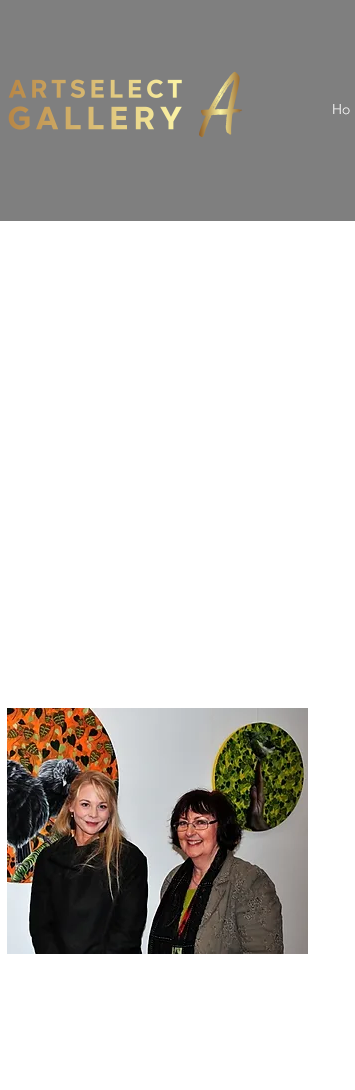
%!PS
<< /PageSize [355 1090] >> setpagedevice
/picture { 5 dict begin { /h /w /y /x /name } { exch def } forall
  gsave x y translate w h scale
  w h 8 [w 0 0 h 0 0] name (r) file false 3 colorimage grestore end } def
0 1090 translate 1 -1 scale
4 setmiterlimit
1 setgray
0 0 355 1090 rectfill
0.498 setgray
0 0 355 221 rectfill
(img1.rgb) 8 71 235 67 picture
/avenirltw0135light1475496-Light [14 0 0 -14 0 0] selectfont
1 setgray
332 114 moveto (Ho) show
(img2.rgb) 7 708 301 246 picture
showpage
